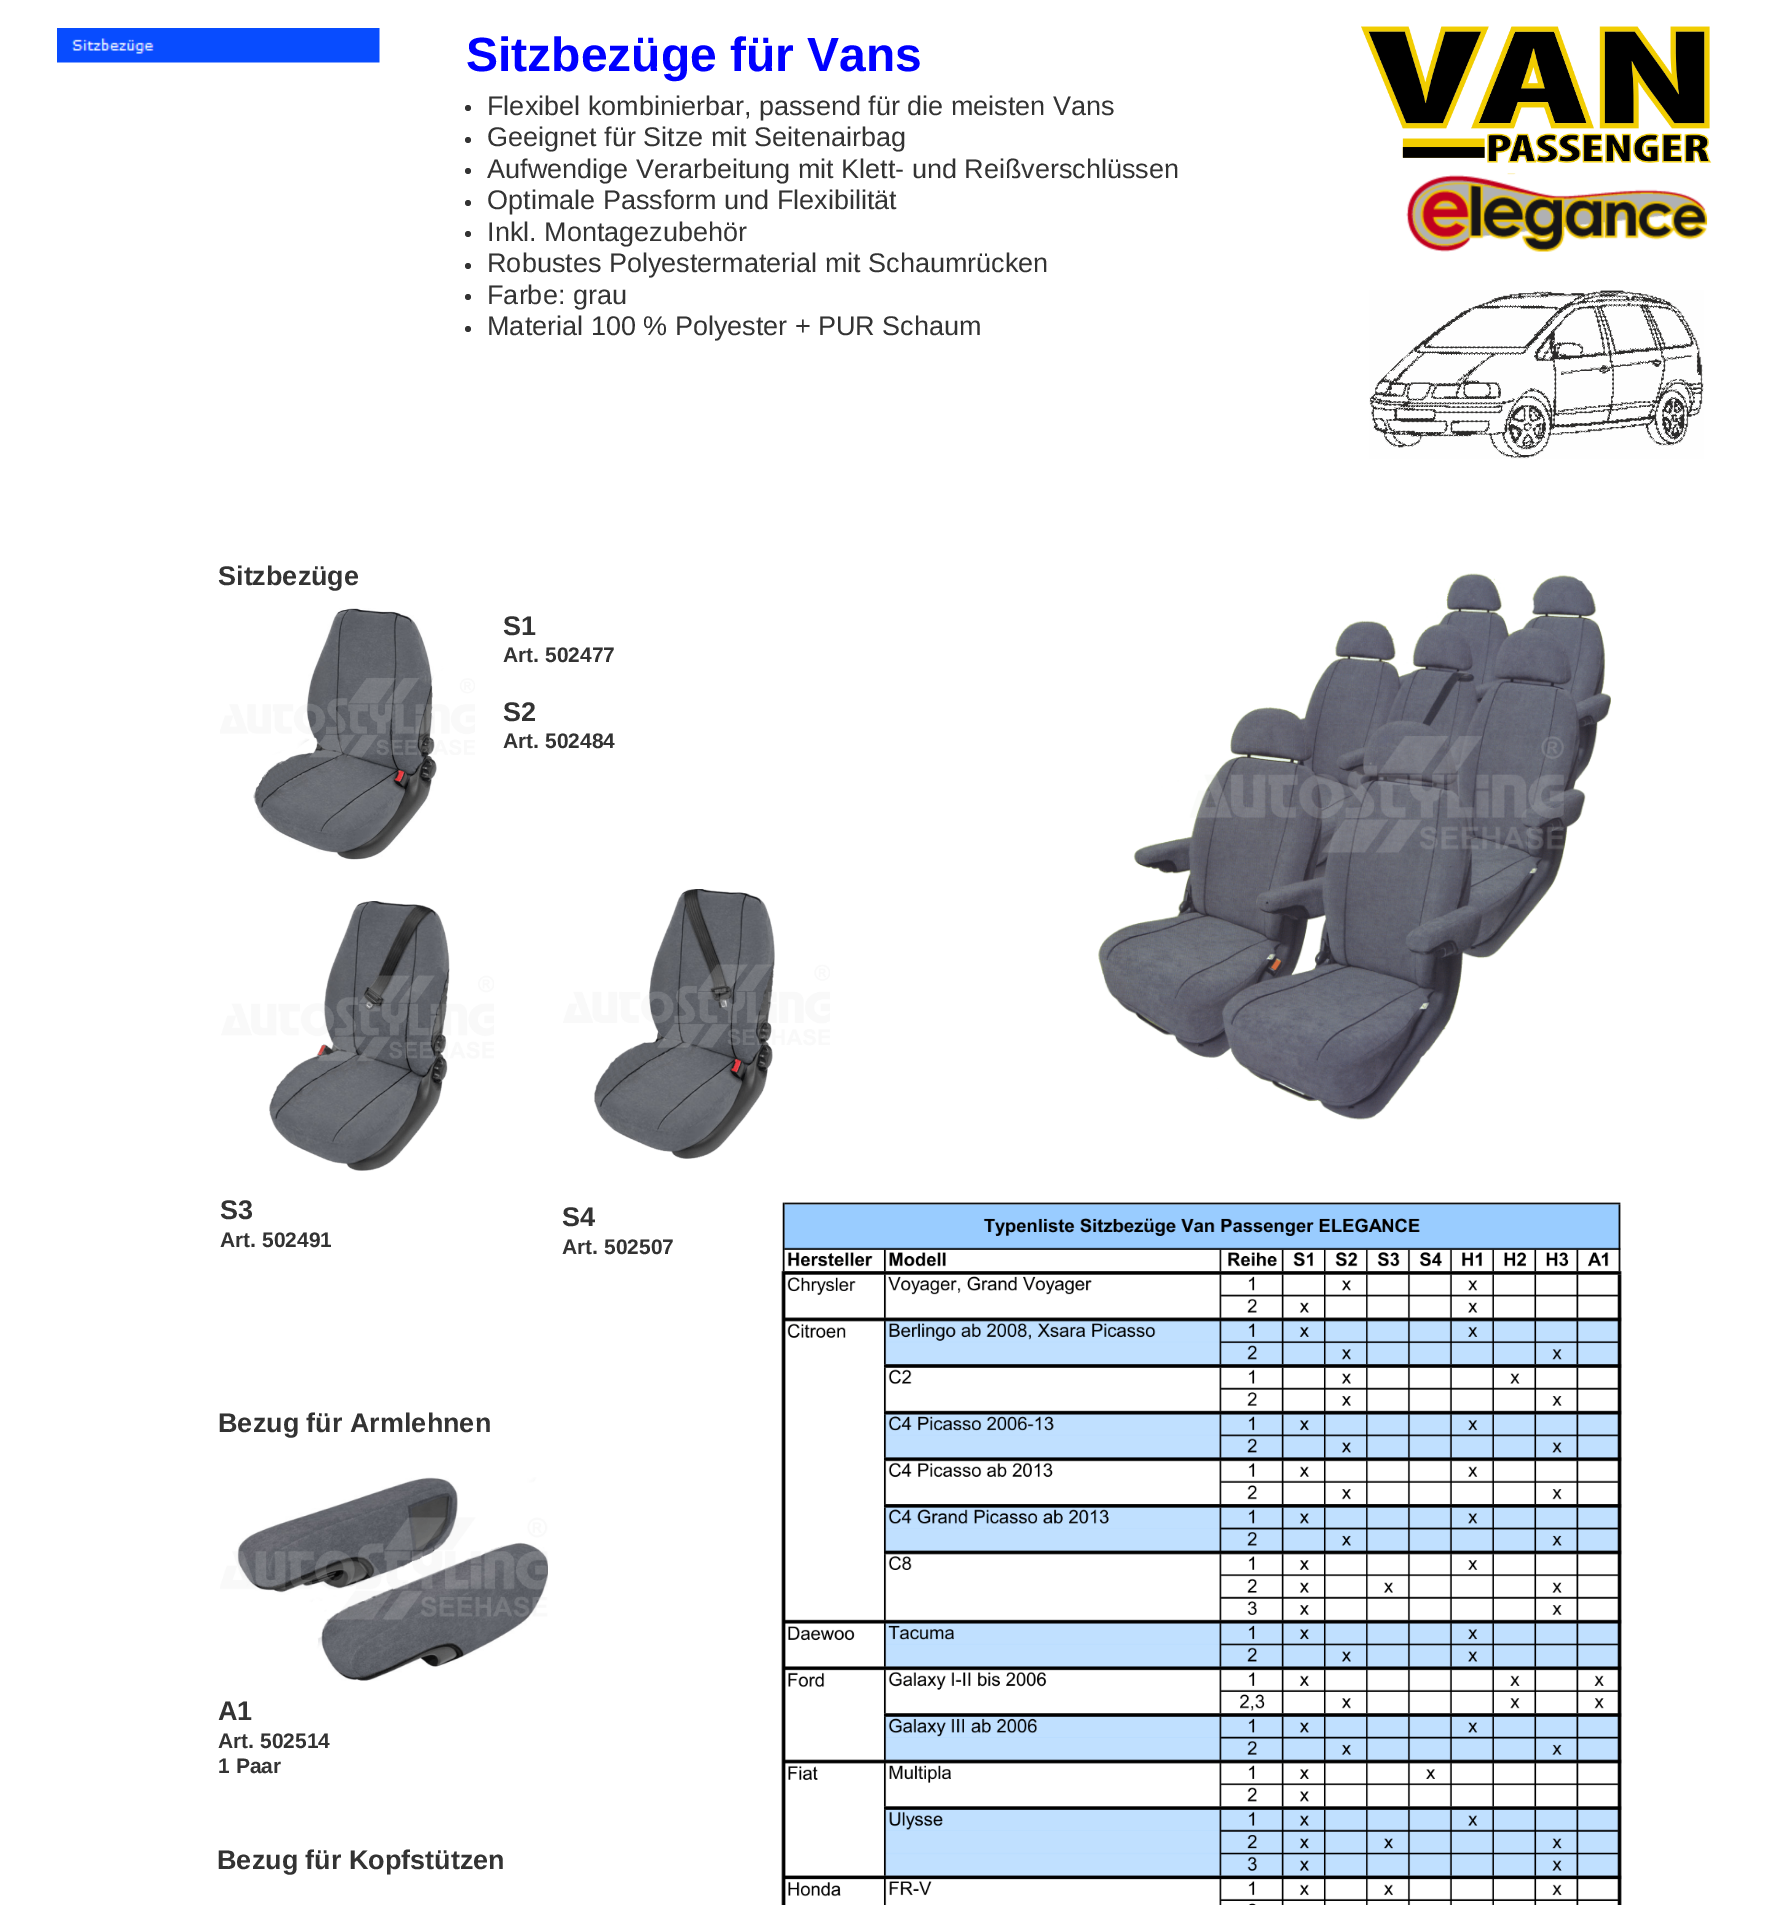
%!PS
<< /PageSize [1775 1905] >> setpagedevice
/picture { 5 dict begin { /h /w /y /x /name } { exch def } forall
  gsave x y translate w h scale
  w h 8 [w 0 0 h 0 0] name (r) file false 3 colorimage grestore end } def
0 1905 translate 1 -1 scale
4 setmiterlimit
1 setgray
0 0 1775 1905 rectfill
(img1.rgb) 57 28 323 35 picture
/LiberationSans-Bold [48 0 0 -48 0 0] selectfont
0 0 1 setrgbcolor
466 71 moveto (Sitzbezüge für Vans) show
0.2 setgray
newpath 468 108 3 0 360 arc closepath fill
/LiberationSans-Regular [27 0 0 -27 0 0] selectfont
487 115 moveto (Flexibel kombinierbar, passend für die meisten Vans) show
newpath 468 140 3 0 360 arc closepath fill
487 146 moveto (Geeignet für Sitze mit Seitenairbag) show
newpath 468 171 3 0 360 arc closepath fill
487 178 moveto (Aufwendige Verarbeitung mit Klett- und Reißverschlüssen) show
newpath 468 203 3 0 360 arc closepath fill
487 209 moveto (Optimale Passform und Flexibilität) show
newpath 468 234 3 0 360 arc closepath fill
487 241 moveto (Inkl. Montagezubehör) show
newpath 468 266 3 0 360 arc closepath fill
487 272 moveto (Robustes Polyestermaterial mit Schaumrücken) show
newpath 468 297 3 0 360 arc closepath fill
487 304 moveto (Farbe: grau) show
newpath 468 329 3 0 360 arc closepath fill
487 335 moveto (Material 100 % Polyester + PUR Schaum) show
(img2.rgb) 1361 26 351 226 picture
(img3.rgb) 1369 290 335 169 picture
/LiberationSans-Bold [27 0 0 -27 0 0] selectfont
218 585 moveto (Sitzbezüge) show
(img4.rgb) 220 608 255 252 picture
(img5.rgb) 221 901 273 270 picture
503 635 moveto (S1) show
/LiberationSans-Bold [21 0 0 -21 0 0] selectfont
503 662 moveto (Art. 502477) show
/LiberationSans-Bold [27 0 0 -27 0 0] selectfont
503 721 moveto (S2) show
/LiberationSans-Bold [21 0 0 -21 0 0] selectfont
503 748 moveto (Art. 502484) show
(img6.rgb) 563 889 267 270 picture
(img7.rgb) 1098 573 513 547 picture
/LiberationSans-Bold [27 0 0 -27 0 0] selectfont
220 1219 moveto (S3) show
/LiberationSans-Bold [21 0 0 -21 0 0] selectfont
220 1247 moveto (Art. 502491) show
/LiberationSans-Bold [27 0 0 -27 0 0] selectfont
562 1226 moveto (S4) show
/LiberationSans-Bold [21 0 0 -21 0 0] selectfont
562 1254 moveto (Art. 502507) show
/LiberationSans-Bold [27 0 0 -27 0 0] selectfont
218 1432 moveto (Bezug für Armlehnen) show
(img8.rgb) 220 1477 328 204 picture
218 1720 moveto (A1) show
/LiberationSans-Bold [21 0 0 -21 0 0] selectfont
218 1748 moveto (Art. 502514) show
218 1773 moveto (1 Paar) show
/LiberationSans-Bold [27 0 0 -27 0 0] selectfont
217 1869 moveto (Bezug für Kopfstützen) show
(img9.rgb) 781 1202 841 703 picture
showpage
